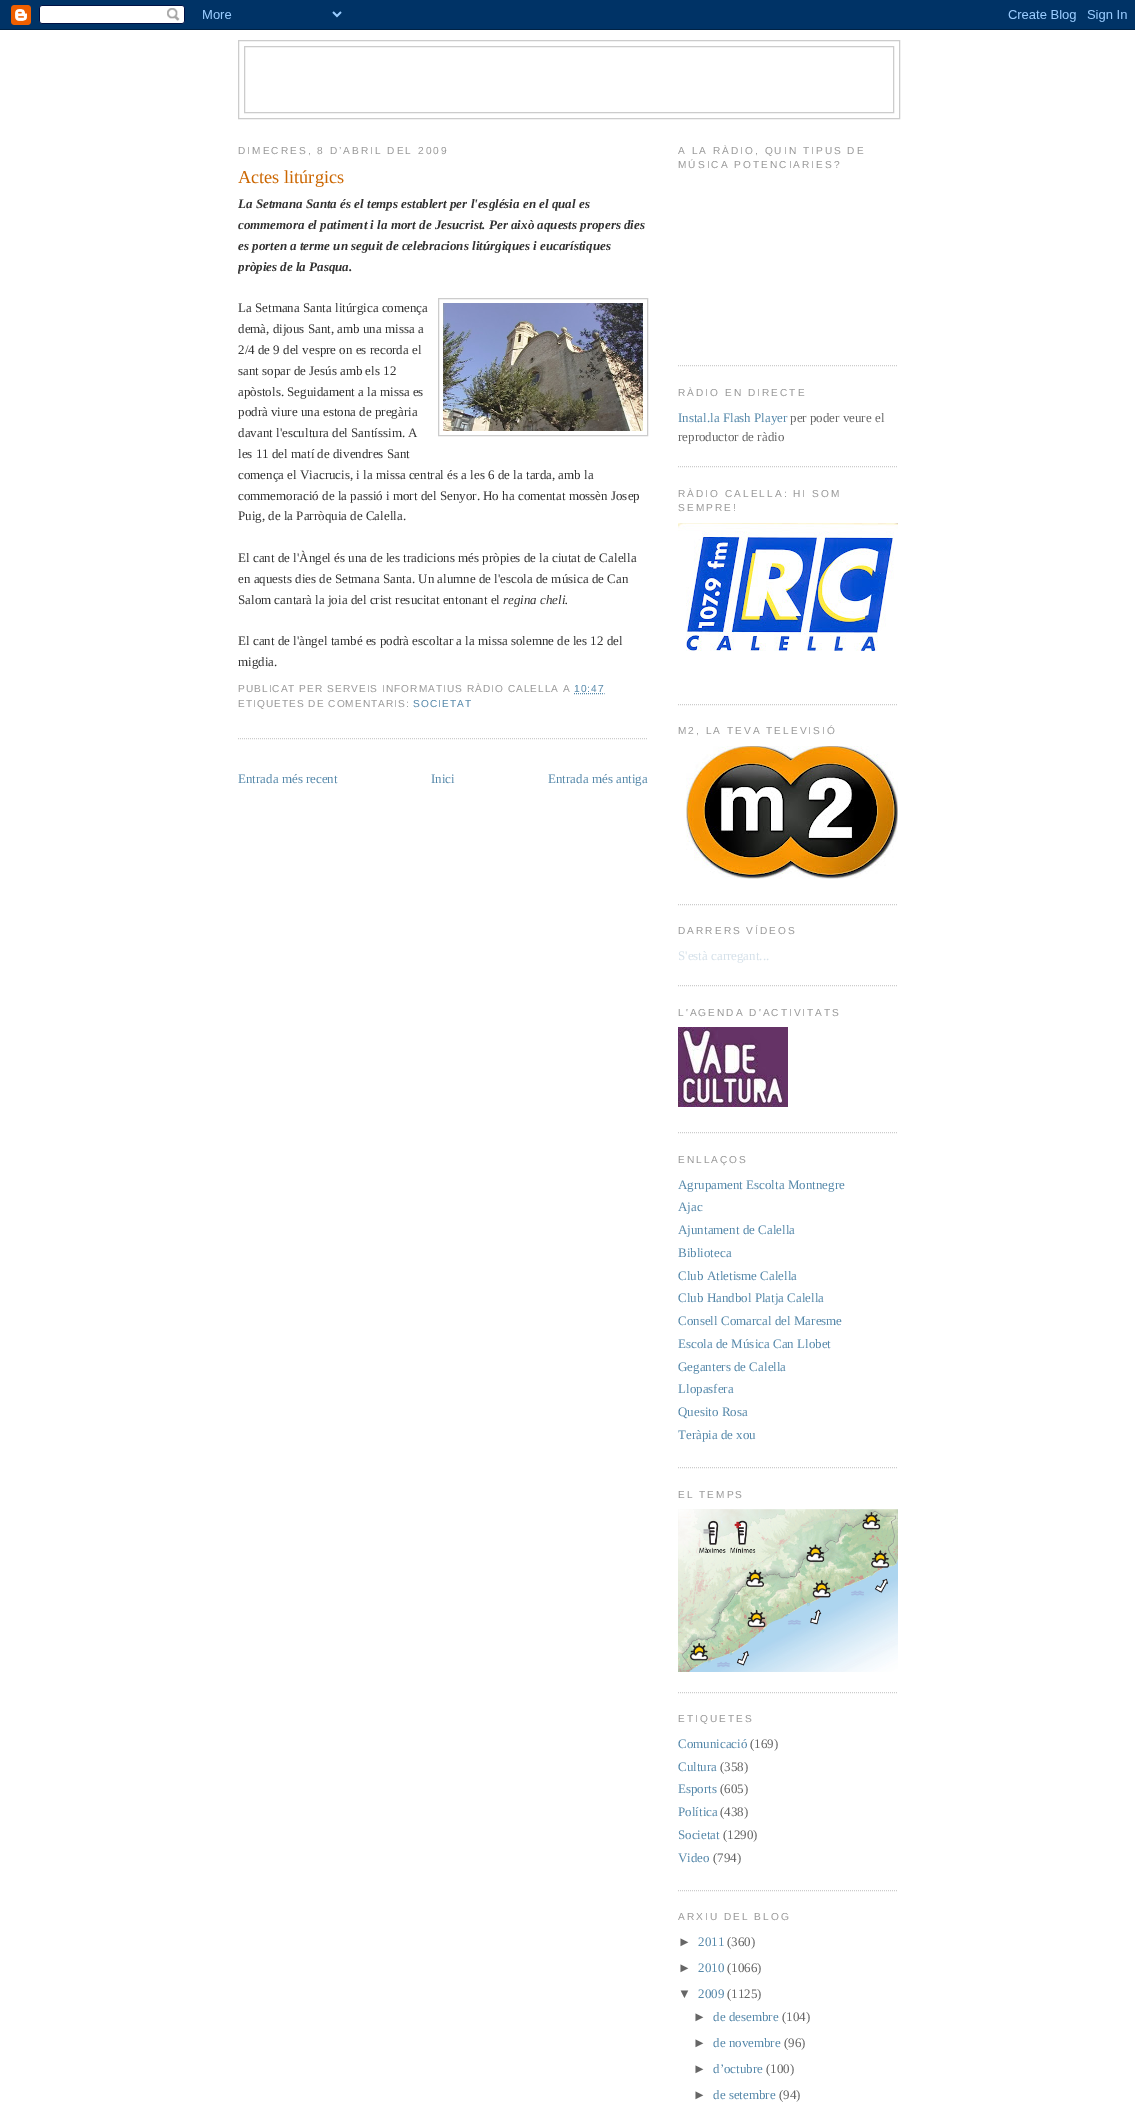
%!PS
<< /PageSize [1135 2114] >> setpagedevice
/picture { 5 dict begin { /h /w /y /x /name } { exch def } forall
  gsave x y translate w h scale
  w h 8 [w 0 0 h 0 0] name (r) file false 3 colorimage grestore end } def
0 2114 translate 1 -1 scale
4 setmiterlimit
1 setgray
0 0 1135 2114 rectfill
(img1.rgb) 0 0 1135 30 picture
0.8 setgray
238.5 40.5 661 78 rectstroke
244.5 46.5 649 66 rectstroke
/LiberationSans-Regular [10.15 0 0 -10.15 0 0] selectfont
0.6 setgray
238 154 moveto 2 0 (DIMECRES, 8 D’ABRIL DEL 2009) ashow
0.8 setgray
[1 1] 0 setdash
newpath 238 738.5 moveto 648 738.5 lineto stroke
/LiberationSerif-Regular [18.25 0 0 -18.25 0 0] selectfont
0.8 0.4 0 setrgbcolor
238 183 moveto (Actes litúrgics) show
/LiberationSerif-BoldItalic [13 0 0 -13 0 0] selectfont
0.2 setgray
238 208 moveto (La Setmana Santa és el temps establert per l'església en el qual es) show
gsave
238 129 410 710 rectclip
238 229 moveto (commemora el patiment i la mort de Jesucrist. Per això aquests propers dies) show
grestore
238 250 moveto (es porten a terme un seguit de celebracions litúrgiques i eucarístiques) show
gsave
238 129 410 710 rectclip
238 271 moveto (pròpies de la Pasqua.) show
grestore
/LiberationSerif-Regular [13 0 0 -13 0 0] selectfont
238 312 moveto (La Setmana Santa litúrgica comença) show
0.8 setgray
[] 0 setdash
438.5 298.5 209 137 rectstroke
(img2.rgb) 443 303 200 128 picture
0.2 setgray
238 333 moveto (demà, dijous Sant, amb una missa a) show
238 354 moveto (2/4 de 9 del vespre on es recorda el) show
238 375 moveto (sant sopar de Jesús amb els 12) show
238 396 moveto (apòstols. Seguidament a la missa es) show
238 416 moveto (podrà viure una estona de pregària) show
238 437 moveto (davant l'escultura del Santíssim. A) show
238 458 moveto (les 11 del matí de divendres Sant) show
238 479 moveto (comença el Viacrucis, i la missa central és a les 6 de la tarda, amb la) show
238 500 moveto (commemoració de la passió i mort del Senyor. Ho ha comentat mossèn Josep) show
238 520 moveto (Puig, de la Parròquia de Calella.) show
238 562 moveto (El cant de l'Àngel és una de les tradicions més pròpies de la ciutat de Calella) show
238 583 moveto (en aquests dies de Setmana Santa. Un alumne de l'escola de música de Can) show
238 604 moveto (Salom cantarà la joia del crist resucitat entonant el) show
/LiberationSerif-Italic [13 0 0 -13 0 0] selectfont
503 604 moveto (regina cheli.) show
/LiberationSerif-Regular [13 0 0 -13 0 0] selectfont
238 645 moveto (El cant de l'àngel també es podrà escoltar a la missa solemne de les 12 del) show
238 666 moveto (migdia.) show
/LiberationSans-Regular [10.15 0 0 -10.15 0 0] selectfont
0.6 setgray
238 692 moveto 1 0 (PUBLICAT PER SERVEIS INFORMATIUS RÀDIO CALELLA A) ashow
0.333 0.533 0.667 setrgbcolor
574 692 moveto 1 0 (10:47) ashow
[1 1] 0 setdash
newpath 574 693.5 moveto 604.5 693.5 lineto stroke
0.6 setgray
238 707 moveto 1 0 (ETIQUETES DE COMENTARIS:) ashow
0.333 0.533 0.667 setrgbcolor
413 707 moveto 1 0 (SOCIETAT) ashow
/LiberationSerif-Regular [13 0 0 -13 0 0] selectfont
238 783 moveto (Entrada més recent) show
431 783 moveto (Inici) show
548 783 moveto (Entrada més antiga) show
0.8 setgray
newpath 678 365.5 moveto 898 365.5 lineto stroke
/LiberationSans-Regular [10.15 0 0 -10.15 0 0] selectfont
0.6 setgray
678 154 moveto 2 0 (A LA RÀDIO, QUIN TIPUS DE) ashow
678 168 moveto 2 0 (MÚSICA POTENCIARIES?) ashow
0.8 setgray
newpath 678 466.5 moveto 898 466.5 lineto stroke
0.6 setgray
678 396 moveto 2 0 (RÀDIO EN DIRECTE) ashow
/LiberationSerif-Regular [13 0 0 -13 0 0] selectfont
0.333 0.533 0.667 setrgbcolor
678 422 moveto (Instal.la Flash Player) show
0.4 setgray
790 422 moveto (per poder veure el) show
678 441 moveto (reproductor de ràdio) show
0.8 setgray
newpath 678 704.5 moveto 898 704.5 lineto stroke
/LiberationSans-Regular [10.15 0 0 -10.15 0 0] selectfont
0.6 setgray
678 497 moveto 2 0 (RÀDIO CALELLA: HI SOM) ashow
678 511 moveto 2 0 (SEMPRE!) ashow
(img3.rgb) 678 523 220 128 picture
0.8 setgray
newpath 678 904.5 moveto 898 904.5 lineto stroke
0.6 setgray
678 734 moveto 2 0 (M2, LA TEVA TELEVISIÓ) ashow
(img4.rgb) 686 746 212 133 picture
0.8 setgray
newpath 678 985.5 moveto 898 985.5 lineto stroke
0.6 setgray
678 934 moveto 2 0 (DARRERS VÍDEOS) ashow
/LiberationSerif-Regular [13 0 0 -13 0 0] selectfont
0.835 0.882 0.918 setrgbcolor
678 960 moveto (S'està carregant...) show
0.8 setgray
newpath 678 1132.5 moveto 898 1132.5 lineto stroke
/LiberationSans-Regular [10.15 0 0 -10.15 0 0] selectfont
0.6 setgray
678 1016 moveto 2 0 (L'AGENDA D'ACTIVITATS) ashow
(img5.rgb) 678 1027 110 80 picture
0.8 setgray
newpath 678 1467.5 moveto 898 1467.5 lineto stroke
0.6 setgray
678 1163 moveto 2 0 (ENLLAÇOS) ashow
/LiberationSerif-Regular [13 0 0 -13 0 0] selectfont
0.333 0.533 0.667 setrgbcolor
678 1189 moveto (Agrupament Escolta Montnegre) show
678 1211 moveto (Ajac) show
678 1234 moveto (Ajuntament de Calella) show
678 1257 moveto (Biblioteca) show
678 1280 moveto (Club Atletisme Calella) show
678 1302 moveto (Club Handbol Platja Calella) show
678 1325 moveto (Consell Comarcal del Maresme) show
678 1348 moveto (Escola de Música Can Llobet) show
678 1371 moveto (Geganters de Calella) show
678 1393 moveto (Llopasfera) show
678 1416 moveto (Quesito Rosa) show
gsave
678 129 220 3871 rectclip
678 1439 moveto (Teràpia de xou) show
grestore
0.8 setgray
newpath 678 1692.5 moveto 898 1692.5 lineto stroke
/LiberationSans-Regular [10.15 0 0 -10.15 0 0] selectfont
0.6 setgray
678 1498 moveto 2 0 (EL TEMPS) ashow
(img6.rgb) 678 1509 220 163 picture
0.8 setgray
newpath 678 1890.5 moveto 898 1890.5 lineto stroke
0.6 setgray
678 1722 moveto 2 0 (ETIQUETES) ashow
/LiberationSerif-Regular [13 0 0 -13 0 0] selectfont
0.333 0.533 0.667 setrgbcolor
678 1748 moveto (Comunicació) show
0.4 setgray
750 1748 moveto (\(169\)) show
0.333 0.533 0.667 setrgbcolor
678 1771 moveto (Cultura) show
0.4 setgray
720 1771 moveto (\(358\)) show
0.333 0.533 0.667 setrgbcolor
678 1793 moveto (Esports) show
0.4 setgray
720 1793 moveto (\(605\)) show
0.333 0.533 0.667 setrgbcolor
678 1816 moveto (Política) show
0.4 setgray
720 1816 moveto (\(438\)) show
0.333 0.533 0.667 setrgbcolor
678 1839 moveto (Societat) show
0.4 setgray
723 1839 moveto (\(1290\)) show
0.333 0.533 0.667 setrgbcolor
678 1862 moveto (Video) show
0.4 setgray
713 1862 moveto (\(794\)) show
/LiberationSans-Regular [10.15 0 0 -10.15 0 0] selectfont
0.6 setgray
678 1920 moveto 2 0 (ARXIU DEL BLOG) ashow
/LiberationSans-Regular [13 0 0 -13 0 0] selectfont
0.4 setgray
678 1946 moveto (►) show
/LiberationSerif-Regular [13 0 0 -13 0 0] selectfont
0.333 0.533 0.667 setrgbcolor
698 1946 moveto (2011) show
0.4 setgray
727 1946 moveto (\(360\)) show
/LiberationSans-Regular [13 0 0 -13 0 0] selectfont
678 1972 moveto (►) show
/LiberationSerif-Regular [13 0 0 -13 0 0] selectfont
0.333 0.533 0.667 setrgbcolor
698 1972 moveto (2010) show
0.4 setgray
727 1972 moveto (\(1066\)) show
/LiberationSans-Regular [13 0 0 -13 0 0] selectfont
678 1998 moveto (▼) show
/LiberationSerif-Regular [13 0 0 -13 0 0] selectfont
0.333 0.533 0.667 setrgbcolor
698 1998 moveto (2009) show
0.4 setgray
727 1998 moveto (\(1125\)) show
/LiberationSans-Regular [13 0 0 -13 0 0] selectfont
693 2021 moveto (►) show
/LiberationSerif-Regular [13 0 0 -13 0 0] selectfont
0.333 0.533 0.667 setrgbcolor
713 2021 moveto (de desembre) show
0.4 setgray
782 2021 moveto (\(104\)) show
/LiberationSans-Regular [13 0 0 -13 0 0] selectfont
693 2047 moveto (►) show
/LiberationSerif-Regular [13 0 0 -13 0 0] selectfont
0.333 0.533 0.667 setrgbcolor
713 2047 moveto (de novembre) show
0.4 setgray
784 2047 moveto (\(96\)) show
/LiberationSans-Regular [13 0 0 -13 0 0] selectfont
693 2073 moveto (►) show
/LiberationSerif-Regular [13 0 0 -13 0 0] selectfont
0.333 0.533 0.667 setrgbcolor
713 2073 moveto (d’octubre) show
0.4 setgray
766 2073 moveto (\(100\)) show
/LiberationSans-Regular [13 0 0 -13 0 0] selectfont
693 2099 moveto (►) show
/LiberationSerif-Regular [13 0 0 -13 0 0] selectfont
0.333 0.533 0.667 setrgbcolor
713 2099 moveto (de setembre) show
0.4 setgray
779 2099 moveto (\(94\)) show
showpage
